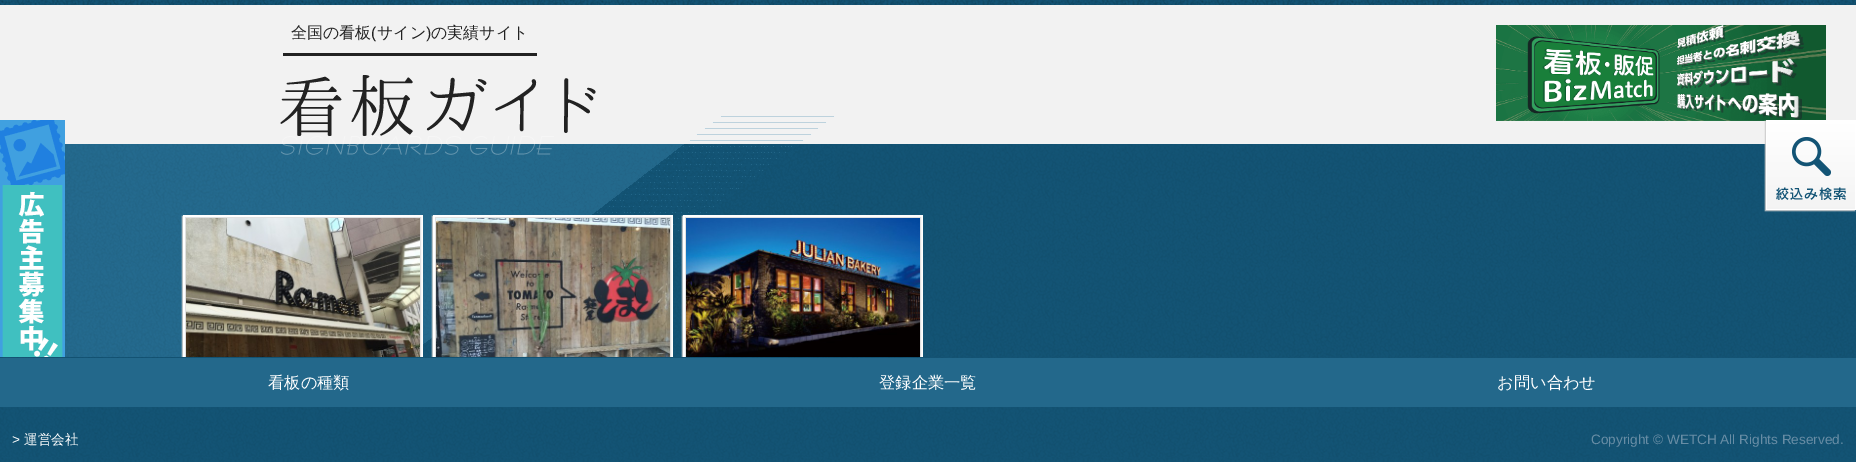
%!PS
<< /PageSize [1856 462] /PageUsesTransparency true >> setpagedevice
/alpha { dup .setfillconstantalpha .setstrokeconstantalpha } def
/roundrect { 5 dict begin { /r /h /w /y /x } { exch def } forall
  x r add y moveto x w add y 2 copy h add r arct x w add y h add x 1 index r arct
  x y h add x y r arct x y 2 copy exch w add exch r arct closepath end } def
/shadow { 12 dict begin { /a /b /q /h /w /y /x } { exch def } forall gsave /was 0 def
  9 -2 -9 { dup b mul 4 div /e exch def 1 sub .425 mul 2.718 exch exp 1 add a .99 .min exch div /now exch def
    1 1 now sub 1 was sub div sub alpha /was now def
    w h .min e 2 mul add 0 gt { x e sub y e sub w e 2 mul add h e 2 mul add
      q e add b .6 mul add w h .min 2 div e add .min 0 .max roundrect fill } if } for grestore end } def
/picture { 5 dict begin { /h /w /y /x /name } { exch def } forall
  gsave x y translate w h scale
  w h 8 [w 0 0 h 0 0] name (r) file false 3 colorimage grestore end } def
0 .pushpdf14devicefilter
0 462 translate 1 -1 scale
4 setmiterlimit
0.949 setgray
0 0 1856 462 rectfill
(img1.rgb) 0 0 1856 5 picture
0.133 setgray
283 53 254 3 rectfill
/WenQuanYiZenHei-Medium [16 0 0 -16 0 0] selectfont
291 38 moveto (全国の看板) show
/LiberationSans-Regular [16 0 0 -16 0 0] selectfont
371 38 moveto (\() show
/WenQuanYiZenHei-Medium [16 0 0 -16 0 0] selectfont
377 38 moveto (サイン) show
/LiberationSans-Regular [16 0 0 -16 0 0] selectfont
426 38 moveto (\)) show
/WenQuanYiZenHei-Medium [16 0 0 -16 0 0] selectfont
431 38 moveto (の実績サイト) show
(img9.rgb) 293 116 542 241 picture
(img11.rgb) 65 144 228 213 picture
(img2.rgb) 280 75 316 80 picture
(img3.rgb) 1496 25 330 96 picture
(img4.rgb) 0 120 65 237 picture
0.8 setgray
182 216 240 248 0 0.5 1 shadow
1 setgray
183 215 240 142 rectfill
0.882 setgray
185.5 217.5 235 177 rectstroke
(img5.rgb) 186 218 234 139 picture
0.8 setgray
432 216 240 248 0 0.5 1 shadow
1 setgray
433 215 240 142 rectfill
0.882 setgray
435.5 217.5 235 177 rectstroke
(img6.rgb) 436 218 234 139 picture
(img10.rgb) 835 144 1021 213 picture
0.8 setgray
682 216 240 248 0 0.5 1 shadow
1 setgray
683 215 240 142 rectfill
0.882 setgray
685.5 217.5 235 149 rectstroke
(img7.rgb) 686 218 234 139 picture
0.8 setgray
1765 121 90 90 0 0.5 1 shadow
(img8.rgb) 1766 120 90 90 picture
(img12.rgb) 0 357 1856 105 picture
0.137 0.408 0.545 setrgbcolor
0 358 1856 49 rectfill
/WenQuanYiZenHei-Medium [16.25 0 0 -16.25 0 0] selectfont
1 setgray
268 388 moveto (看板の種類) show
879 388 moveto (登録企業一覧) show
1497 388 moveto (お問い合わせ) show
/LiberationSans-Regular [13.6 0 0 -13.6 0 0] selectfont
12 444 moveto (>) show
/WenQuanYiZenHei-Medium [13.6 0 0 -13.6 0 0] selectfont
24 444 moveto (運営会社) show
/LiberationSans-Regular [13.6 0 0 -13.6 0 0] selectfont
0.408 0.553 0.647 setrgbcolor
1591 444 moveto (Copyright © WETCH All Rights Reserved.) show
.poppdf14devicefilter showpage
